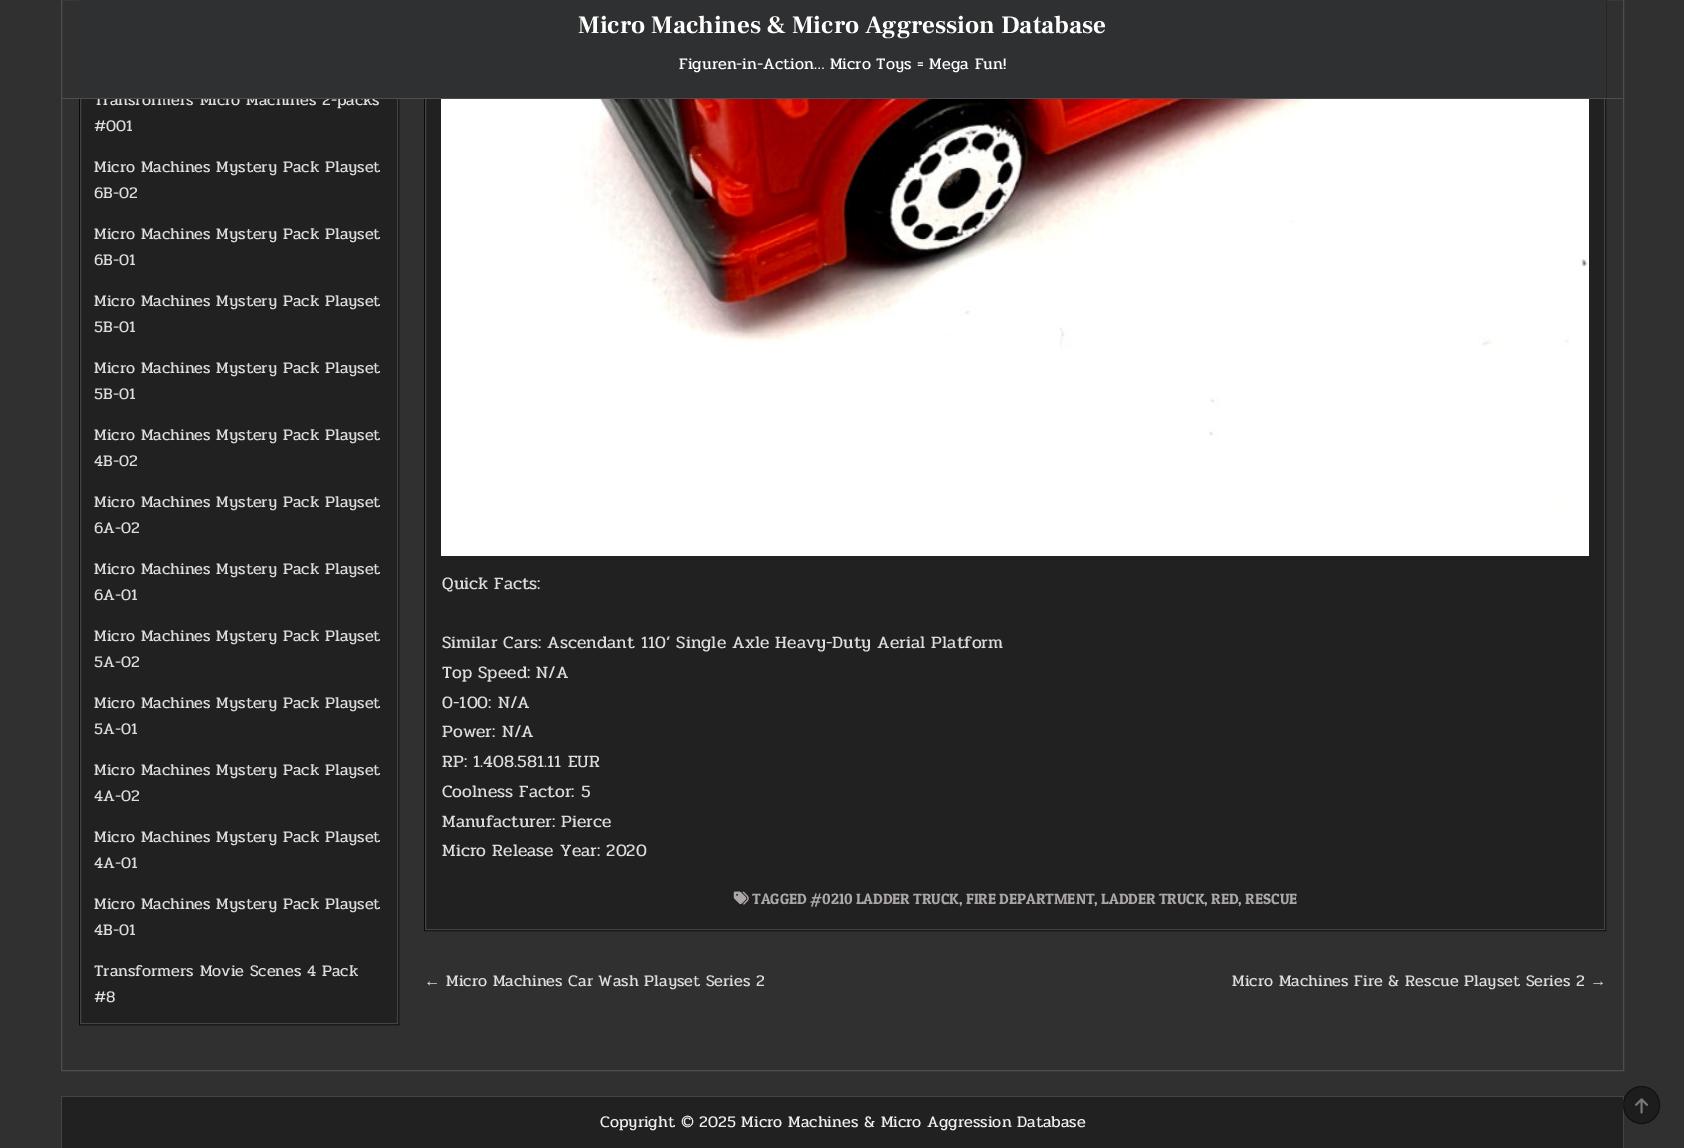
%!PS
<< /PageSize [1684 1148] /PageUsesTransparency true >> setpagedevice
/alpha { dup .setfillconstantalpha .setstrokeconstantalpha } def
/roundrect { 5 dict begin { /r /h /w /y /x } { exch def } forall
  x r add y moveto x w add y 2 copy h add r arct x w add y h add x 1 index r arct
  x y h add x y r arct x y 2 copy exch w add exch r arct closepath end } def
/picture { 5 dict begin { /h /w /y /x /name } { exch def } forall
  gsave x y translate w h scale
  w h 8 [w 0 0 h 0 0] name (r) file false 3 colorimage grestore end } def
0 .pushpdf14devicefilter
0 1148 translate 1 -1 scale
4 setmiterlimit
0.188 setgray
0 0 1684 1148 rectfill
0.29 0.306 0.325 setrgbcolor
61.5 -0.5 1562 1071 rectstroke
0.129 setgray
81 99 316 924 rectfill
0.035 setgray
79.5 -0.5 319 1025 rectstroke
0.267 setgray
80.5 -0.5 317 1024 rectstroke
/Pridi-Regular [16.25 0 0 -16.25 0 0] selectfont
0.867 setgray
94 105 moveto (Transformers Micro Machines 2-packs) show
0.129 setgray
426 99 1178 830 rectfill
0.035 setgray
424.5 -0.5 1181 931 rectstroke
0.267 setgray
425.5 -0.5 1179 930 rectstroke
0.184 0.188 0.192 setrgbcolor
79 0 1527 98 rectfill
0.29 0.306 0.325 setrgbcolor
61 98 1563 1 rectfill
/FrankRuhlLibre-Bold [25 0 0 -25 0 0] selectfont
1 setgray
578 33 moveto (Micro Machines & Micro Aggression Database) show
/Pridi-Regular [16.25 0 0 -16.25 0 0] selectfont
679 69 moveto (Figuren-in-Action… Micro Toys = Mega Fun!) show
0.867 setgray
94 131 moveto (#001) show
94 172 moveto (Micro Machines Mystery Pack Playset) show
94 198 moveto (6B-02) show
94 239 moveto (Micro Machines Mystery Pack Playset) show
94 265 moveto (6B-01) show
94 306 moveto (Micro Machines Mystery Pack Playset) show
94 332 moveto (5B-01) show
94 373 moveto (Micro Machines Mystery Pack Playset) show
94 399 moveto (5B-01) show
94 440 moveto (Micro Machines Mystery Pack Playset) show
94 466 moveto (4B-02) show
94 507 moveto (Micro Machines Mystery Pack Playset) show
94 533 moveto (6A-02) show
94 574 moveto (Micro Machines Mystery Pack Playset) show
94 600 moveto (6A-01) show
94 641 moveto (Micro Machines Mystery Pack Playset) show
94 667 moveto (5A-02) show
94 708 moveto (Micro Machines Mystery Pack Playset) show
94 734 moveto (5A-01) show
94 775 moveto (Micro Machines Mystery Pack Playset) show
94 801 moveto (4A-02) show
94 842 moveto (Micro Machines Mystery Pack Playset) show
94 868 moveto (4A-01) show
94 909 moveto (Micro Machines Mystery Pack Playset) show
94 935 moveto (4B-01) show
94 976 moveto (Transformers Movie Scenes 4 Pack) show
94 1002 moveto (#8) show
(img1.rgb) 441 99 1148 457 picture
/Pridi-Regular [17.5 0 0 -17.5 0 0] selectfont
442 589 moveto (Quick Facts:) show
442 648 moveto (Similar Cars: Ascendant 110’ Single Axle Heavy-Duty Aerial Platform) show
442 678 moveto (Top Speed: N/A) show
442 708 moveto (0-100: N/A) show
442 737 moveto (Power: N/A) show
442 767 moveto (RP: 1.408.581.11 EUR) show
442 797 moveto (Coolness Factor: 5) show
442 827 moveto (Manufacturer: Pierce) show
442 856 moveto (Micro Release Year: 2020) show
(img2.rgb) 733 891 16 14 picture
/PatuaOne-Regular [15 0 0 -15 0 0] selectfont
0.678 0.659 0.659 setrgbcolor
752 904 moveto (TAGGED #0210 LADDER TRUCK, FIRE DEPARTMENT, LADDER TRUCK, RED, RESCUE) show
/LiberationSans-Regular [16.25 0 0 -16.25 0 0] selectfont
0.867 setgray
424 986 moveto (←) show
/Pridi-Regular [16.25 0 0 -16.25 0 0] selectfont
446 986 moveto (Micro Machines Car Wash Playset Series 2) show
1232 986 moveto (Micro Machines Fire & Rescue Playset Series 2) show
/LiberationSans-Regular [16.25 0 0 -16.25 0 0] selectfont
1590 986 moveto (→) show
0.129 setgray
62 1097 1561 51 rectfill
0.267 setgray
61 1096 1563 1 rectfill
1623 1096 1 52 rectfill
61 1096 1 52 rectfill
/Pridi-Regular [16.25 0 0 -16.25 0 0] selectfont
0.933 setgray
600 1127 moveto (Copyright © 2025 Micro Machines & Micro Aggression Database) show
0.4 alpha
0 setgray
1623 1086 37 38 18.5 roundrect fill
1623.5 1086.5 36 37 18 roundrect stroke
1 alpha
(img3.rgb) 1635 1098 14 16 picture
.poppdf14devicefilter showpage
